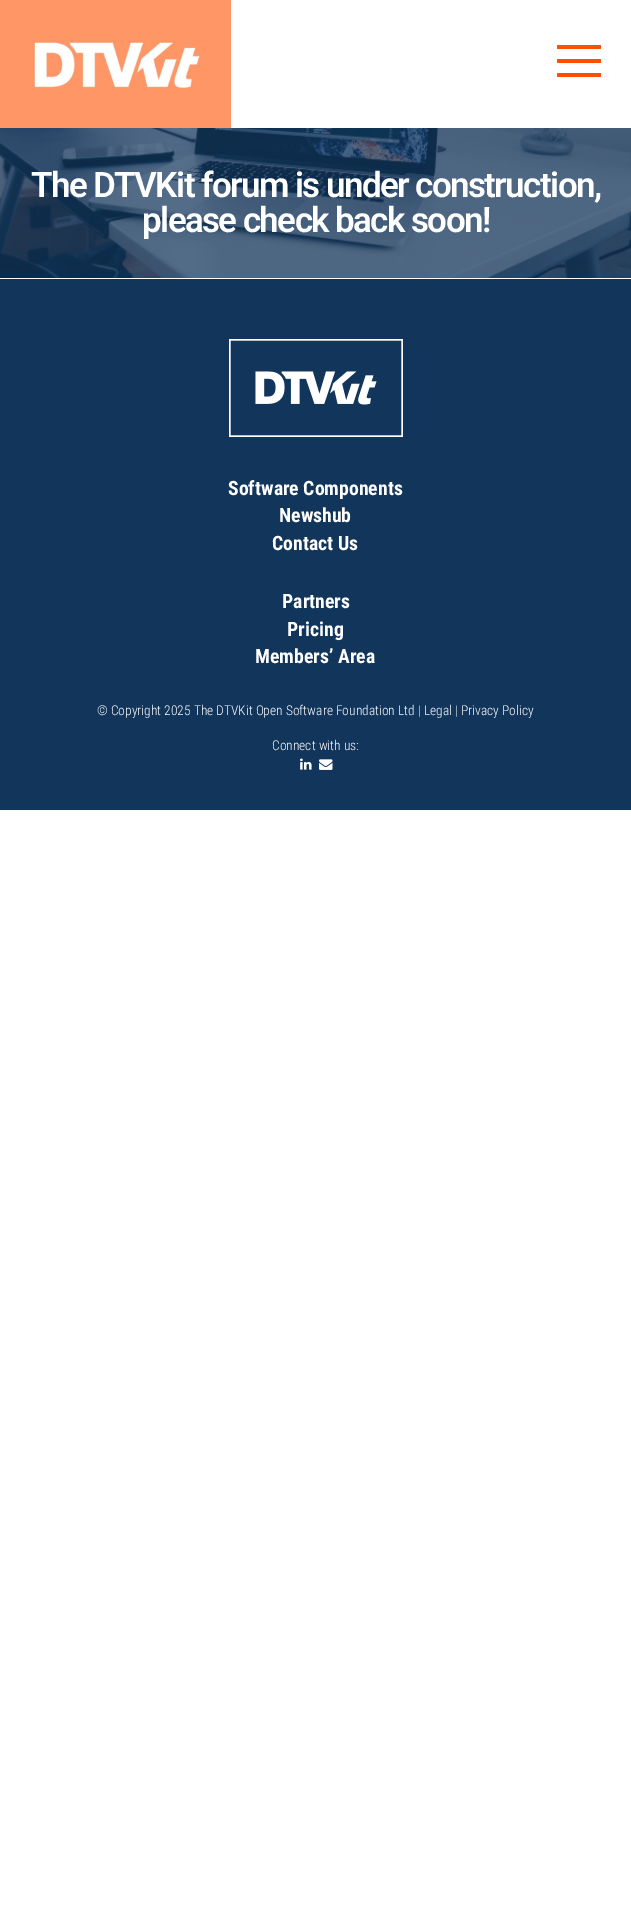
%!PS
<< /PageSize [631 1914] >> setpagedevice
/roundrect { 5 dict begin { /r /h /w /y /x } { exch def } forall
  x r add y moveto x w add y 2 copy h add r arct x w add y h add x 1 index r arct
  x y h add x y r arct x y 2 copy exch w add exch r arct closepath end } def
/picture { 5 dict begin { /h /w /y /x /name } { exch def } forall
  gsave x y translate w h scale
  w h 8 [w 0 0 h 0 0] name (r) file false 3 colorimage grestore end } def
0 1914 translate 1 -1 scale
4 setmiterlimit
1 setgray
0 0 631 1914 rectfill
(img1.rgb) 0 0 231 128 picture
1 0.314 0 setrgbcolor
557 59 44 4 1 roundrect fill
557 45 44 4 1 roundrect fill
557 73 44 4 1 roundrect fill
(img2.rgb) 0 128 631 150 picture
/Roboto-SemiBold [35 0 0 -35 0 0] selectfont
1 setgray
31 197 moveto -1.6 0 (The DTVKit forum is under construction,) ashow
142 232 moveto -1.6 0 (please check back soon!) ashow
0.071 0.208 0.357 setrgbcolor
0 279 631 531 rectfill
(img3.rgb) 229 339 174 98 picture
/RobotoCondensed-Bold [19.75 0 0 -19.75 0 0] selectfont
1 setgray
228 495 moveto (Software Components) show
279 522 moveto (Newshub) show
272 550 moveto (Contact Us) show
282 608 moveto (Partners) show
287 636 moveto (Pricing) show
255 663 moveto (Members’ Area) show
/RobotoCondensed-Light [13.5 0 0 -13.5 0 0] selectfont
97 715 moveto (© Copyright 2025 The DTVKit Open Software Foundation Ltd | Legal | Privacy Policy) show
272 750 moveto (Connect with us:) show
(img4.rgb) 300 758 12 12 picture
(img5.rgb) 319 759 14 11 picture
showpage
